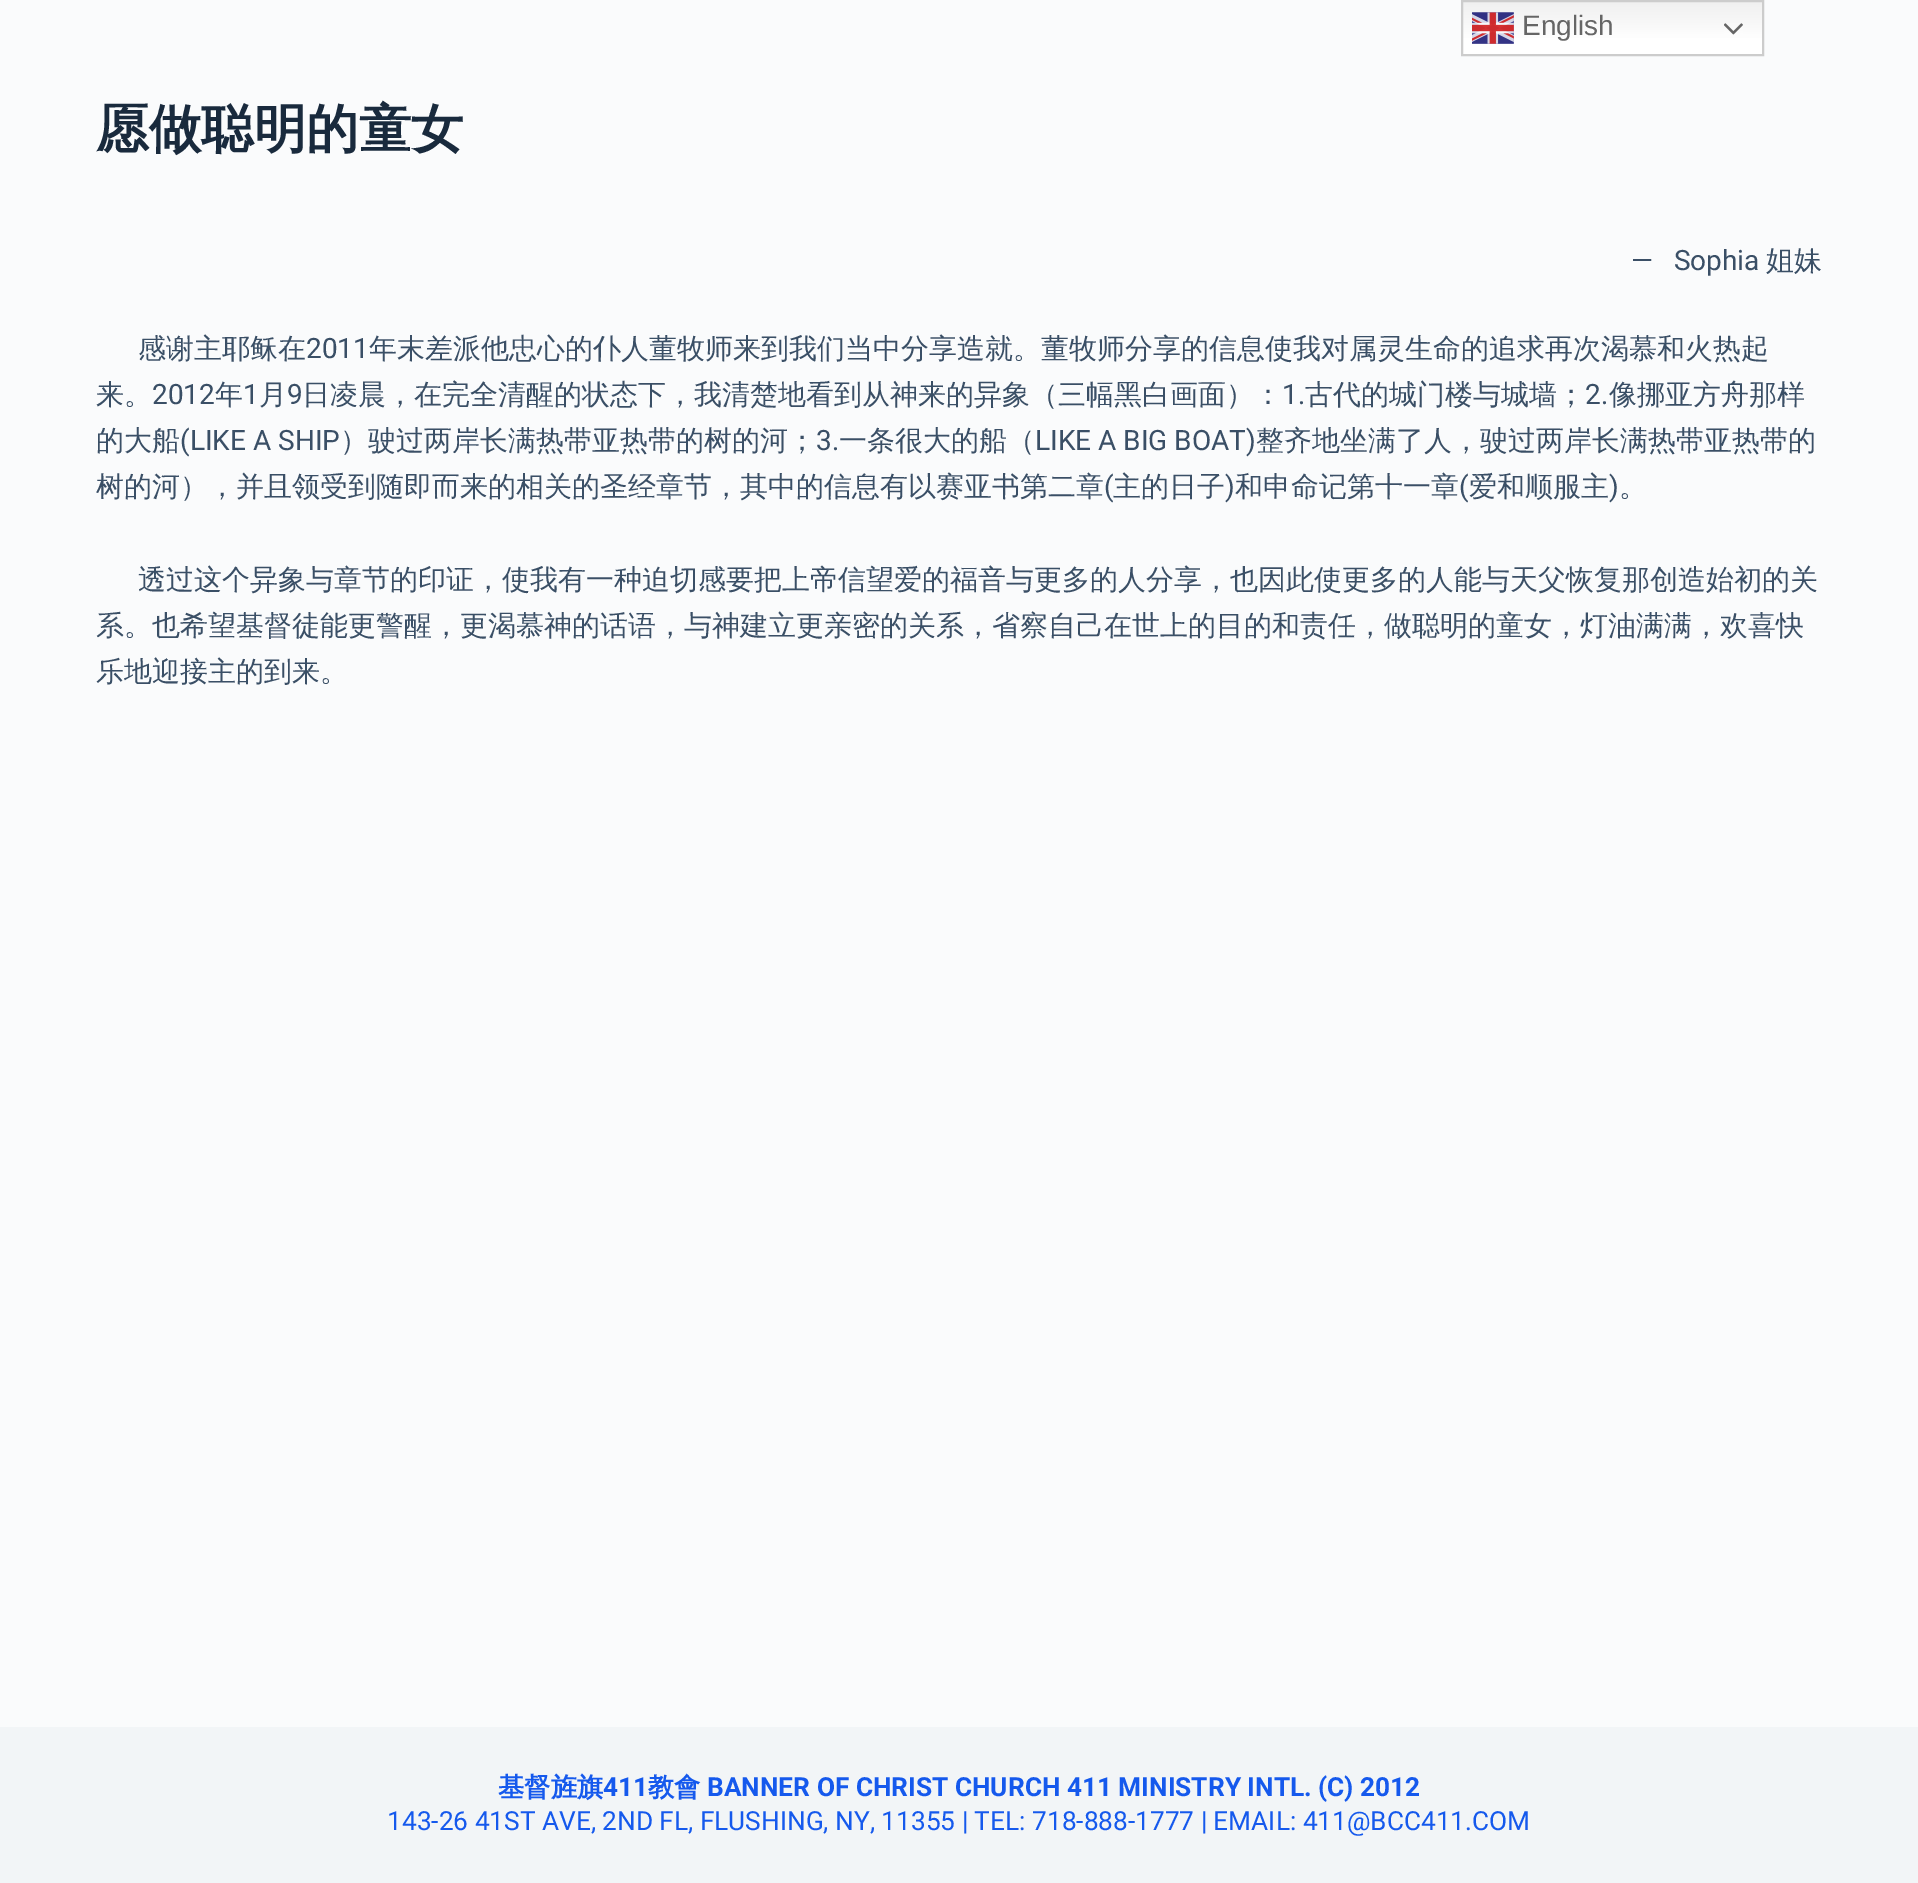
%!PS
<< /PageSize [1918 1883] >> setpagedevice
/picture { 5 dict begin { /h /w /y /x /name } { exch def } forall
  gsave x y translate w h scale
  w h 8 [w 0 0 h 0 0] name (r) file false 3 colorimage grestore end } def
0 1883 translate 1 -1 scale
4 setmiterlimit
0.98 0.984 0.988 setrgbcolor
0 0 1918 1883 rectfill
gsave newpath 1463 2 moveto 1762 2 lineto 1762 54 lineto 1463 54 lineto closepath clip newpath
<< /ShadingType 2 /ColorSpace /DeviceRGB /Coords [1613 0 1613 56] /Extend [true true] /Function << /FunctionType 3 /Domain [0 1] /Functions [<< /FunctionType 2 /Domain [0 1] /C0 [0.937 0.937 0.937] /C1 [1 1 1] /N 1 >> << /FunctionType 2 /Domain [0 1] /C0 [1 1 1] /C1 [1 1 1] /N 1 >>] /Bounds [0.7] /Encode [0 1 0 1] >> >> shfill grestore
0.8 setgray
2 setlinewidth
1462 1 301 54 rectstroke
(img1.rgb) 1472 12 42 32 picture
/LiberationSans-Regular [28 0 0 -28 0 0] selectfont
0.4 setgray
1522 35 moveto (English) show
(img2.rgb) 1724 23 19 12 picture
/WenQuanYiZenHei-Bold [52.5 0 0 -52.5 0 0] selectfont
0.098 0.165 0.239 setrgbcolor
96 147 moveto (愿做聪明的童女) show
/Roboto-Regular [28 0 0 -28 0 0] selectfont
0.227 0.31 0.4 setrgbcolor
1631 270 moveto (—   Sophia) show
/WenQuanYiZenHei-Medium [28 0 0 -28 0 0] selectfont
1766 270 moveto (姐妹) show
138 358 moveto (感谢主耶稣在) show
/Roboto-Regular [28 0 0 -28 0 0] selectfont
306 358 moveto (2011) show
/WenQuanYiZenHei-Medium [28 0 0 -28 0 0] selectfont
369 358 moveto (年末差派他忠心的仆人董牧师来到我们当中分享造就。董牧师分享的信息使我对属灵生命的追求再次渴慕和火热起) show
96 404 moveto (来。) show
/Roboto-Regular [28 0 0 -28 0 0] selectfont
152 404 moveto (2012) show
/WenQuanYiZenHei-Medium [28 0 0 -28 0 0] selectfont
215 404 moveto (年) show
/Roboto-Regular [28 0 0 -28 0 0] selectfont
243 404 moveto (1) show
/WenQuanYiZenHei-Medium [28 0 0 -28 0 0] selectfont
259 404 moveto (月) show
/Roboto-Regular [28 0 0 -28 0 0] selectfont
287 404 moveto (9) show
/WenQuanYiZenHei-Medium [28 0 0 -28 0 0] selectfont
302 404 moveto (日凌晨，在完全清醒的状态下，我清楚地看到从神来的异象（三幅黑白画面）：) show
/Roboto-Regular [28 0 0 -28 0 0] selectfont
1282 404 moveto (1.) show
/WenQuanYiZenHei-Medium [28 0 0 -28 0 0] selectfont
1305 404 moveto (古代的城门楼与城墙；) show
/Roboto-Regular [28 0 0 -28 0 0] selectfont
1585 404 moveto (2.) show
/WenQuanYiZenHei-Medium [28 0 0 -28 0 0] selectfont
1609 404 moveto (像挪亚方舟那样) show
96 450 moveto (的大船) show
/Roboto-Regular [28 0 0 -28 0 0] selectfont
180 450 moveto (\(LIKE A SHIP) show
/WenQuanYiZenHei-Medium [28 0 0 -28 0 0] selectfont
340 450 moveto (）驶过两岸长满热带亚热带的树的河；) show
/Roboto-Regular [28 0 0 -28 0 0] selectfont
816 450 moveto (3.) show
/WenQuanYiZenHei-Medium [28 0 0 -28 0 0] selectfont
839 450 moveto (一条很大的船（) show
/Roboto-Regular [28 0 0 -28 0 0] selectfont
1035 450 moveto (LIKE A BIG BOAT\)) show
/WenQuanYiZenHei-Medium [28 0 0 -28 0 0] selectfont
1256 450 moveto (整齐地坐满了人，驶过两岸长满热带亚热带的) show
96 496 moveto (树的河），并且领受到随即而来的相关的圣经章节，其中的信息有以赛亚书第二章) show
/Roboto-Regular [28 0 0 -28 0 0] selectfont
1104 496 moveto (\() show
/WenQuanYiZenHei-Medium [28 0 0 -28 0 0] selectfont
1113 496 moveto (主的日子) show
/Roboto-Regular [28 0 0 -28 0 0] selectfont
1225 496 moveto (\)) show
/WenQuanYiZenHei-Medium [28 0 0 -28 0 0] selectfont
1235 496 moveto (和申命记第十一章) show
/Roboto-Regular [28 0 0 -28 0 0] selectfont
1459 496 moveto (\() show
/WenQuanYiZenHei-Medium [28 0 0 -28 0 0] selectfont
1469 496 moveto (爱和顺服主) show
/Roboto-Regular [28 0 0 -28 0 0] selectfont
1609 496 moveto (\)) show
/WenQuanYiZenHei-Medium [28 0 0 -28 0 0] selectfont
1619 496 moveto (。) show
138 589 moveto (透过这个异象与章节的印证，使我有一种迫切感要把上帝信望爱的福音与更多的人分享，也因此使更多的人能与天父恢复那创造始初的关) show
96 635 moveto (系。也希望基督徒能更警醒，更渴慕神的话语，与神建立更亲密的关系，省察自己在世上的目的和责任，做聪明的童女，灯油满满，欢喜快) show
96 681 moveto (乐地迎接主的到来。) show
0.949 0.961 0.969 setrgbcolor
0 1727 1918 156 rectfill
/WenQuanYiZenHei-Bold [26.25 0 0 -26.25 0 0] selectfont
0.082 0.349 0.929 setrgbcolor
498 1796 moveto (基督旌旗) show
/Roboto-Bold [26.25 0 0 -26.25 0 0] selectfont
603 1796 moveto (411) show
/WenQuanYiZenHei-Bold [26.25 0 0 -26.25 0 0] selectfont
648 1796 moveto (教會) show
/Roboto-Bold [26.25 0 0 -26.25 0 0] selectfont
707 1796 moveto (BANNER OF CHRIST CHURCH 411 MINISTRY INTL. \(C\) 2012) show
/Roboto-Regular [26.25 0 0 -26.25 0 0] selectfont
387 1830 moveto (143-26 41ST AVE, 2ND FL, FLUSHING, NY, 11355 | TEL: 718-888-1777 | EMAIL: 411@BCC411.COM) show
showpage
